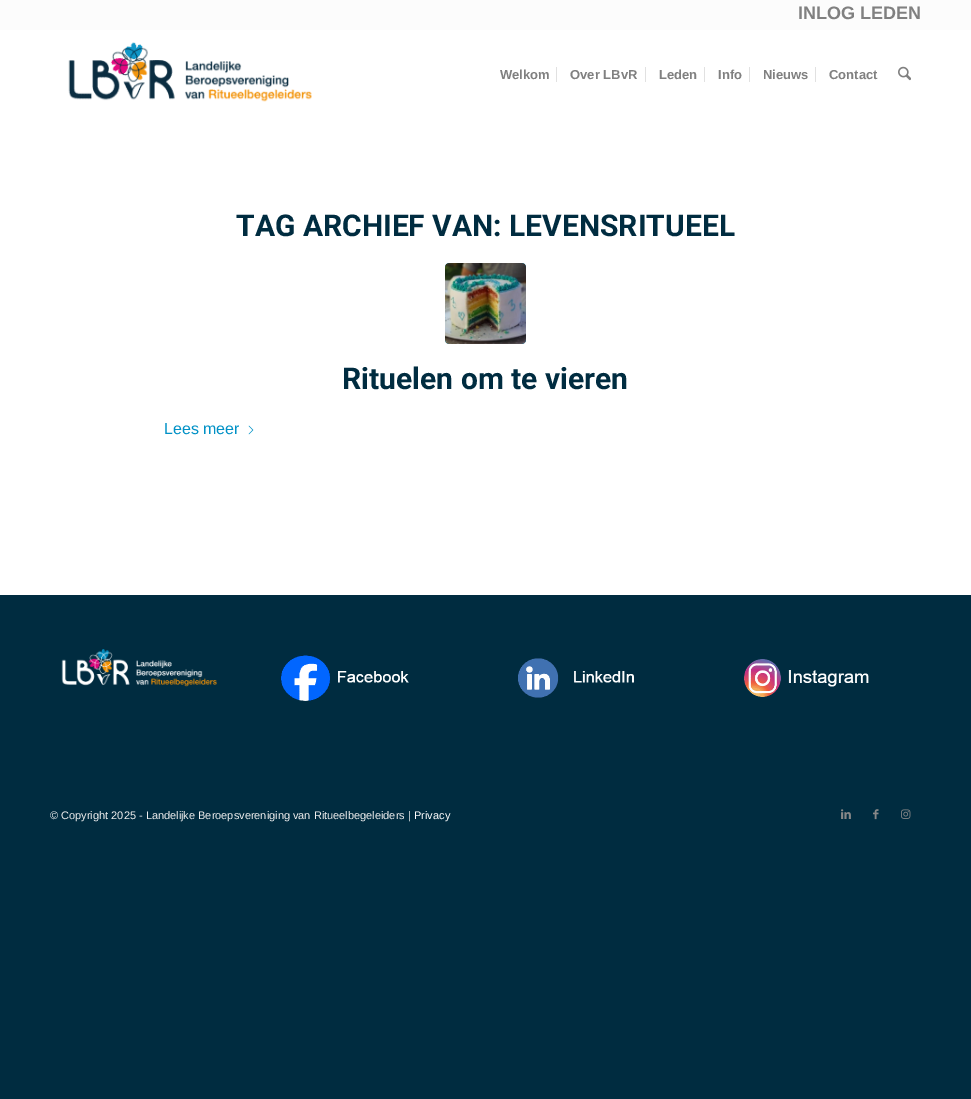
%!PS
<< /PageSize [971 1099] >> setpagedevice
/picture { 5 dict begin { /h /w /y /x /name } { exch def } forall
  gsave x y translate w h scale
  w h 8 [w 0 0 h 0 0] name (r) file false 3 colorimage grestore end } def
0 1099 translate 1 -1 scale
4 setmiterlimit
0 0.173 0.251 setrgbcolor
0 0 971 1099 rectfill
1 setgray
0 30 971 565 rectfill
0.988 setgray
0 0 971 30 rectfill
/LiberationSans-Bold [18 0 0 -18 0 0] selectfont
0.502 setgray
798 19 moveto (INLOG LEDEN) show
(img1.rgb) 68 42 244 60 picture
/LiberationSans-Bold [13 0 0 -13 0 0] selectfont
500 79 moveto (Welkom) show
570 79 moveto (Over LBvR) show
0.882 setgray
556 67 1 15 rectfill
0.502 setgray
659 79 moveto (Leden) show
0.882 setgray
645 67 1 15 rectfill
0.502 setgray
718 79 moveto (Info) show
0.882 setgray
704 67 1 15 rectfill
0.502 setgray
763 79 moveto (Nieuws) show
0.882 setgray
749 67 1 15 rectfill
0.502 setgray
829 79 moveto (Contact) show
0.882 setgray
815 67 1 15 rectfill
(img2.rgb) 898 66 13 15 picture
/Roboto-Bold [30 0 0 -30 0 0] selectfont
0 0.173 0.251 setrgbcolor
236 236 moveto (TAG ARCHIEF VAN: LEVENSRITUEEL) show
(img3.rgb) 445 263 81 81 picture
342 389 moveto (Rituelen om te vieren) show
/LiberationSans-Regular [16 0 0 -16 0 0] selectfont
0 0.569 0.776 setrgbcolor
164 434 moveto (Lees meer) show
(img4.rgb) 248 425 6 10 picture
(img5.rgb) 61 649 156 38 picture
(img6.rgb) 281 655 128 46 picture
(img7.rgb) 518 658 116 40 picture
(img8.rgb) 744 659 125 38 picture
/LiberationSans-Regular [11 0 0 -11 0 0] selectfont
0.933 setgray
50 819 moveto (© Copyright 2025 - Landelijke Beroepsvereniging van Ritueelbegeleiders |) show
1 setgray
414 819 moveto (Privacy) show
(img9.rgb) 841 809 10 10 picture
(img10.rgb) 873 809 6 11 picture
(img11.rgb) 901 809 10 10 picture
showpage
